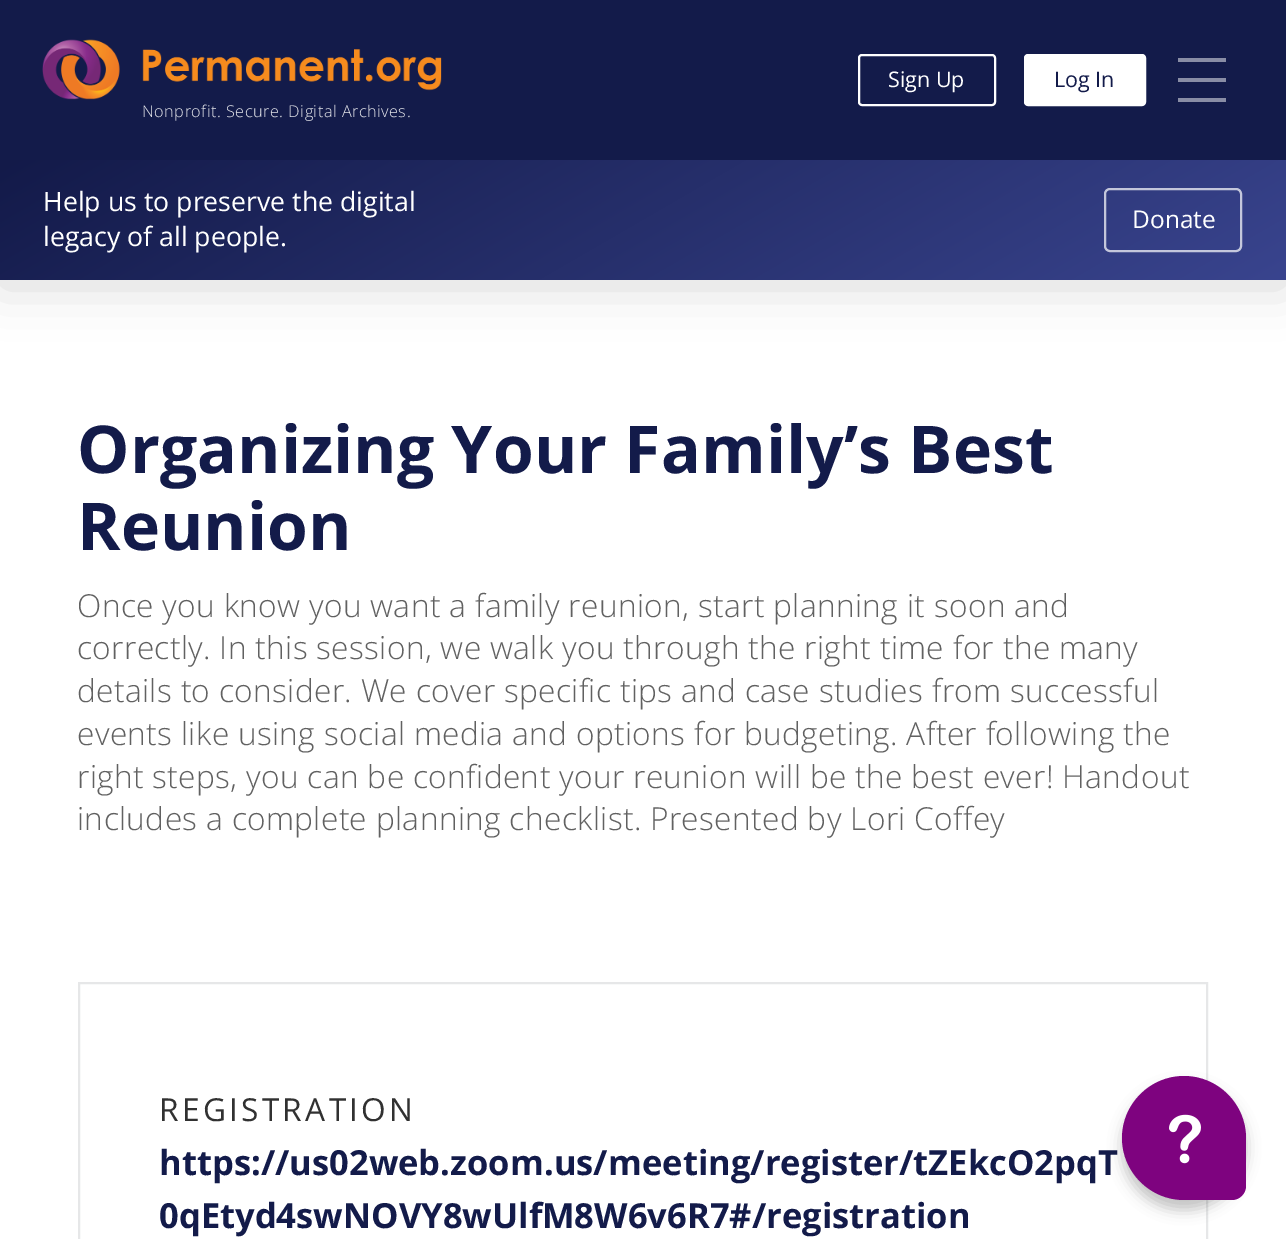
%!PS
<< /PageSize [1286 1239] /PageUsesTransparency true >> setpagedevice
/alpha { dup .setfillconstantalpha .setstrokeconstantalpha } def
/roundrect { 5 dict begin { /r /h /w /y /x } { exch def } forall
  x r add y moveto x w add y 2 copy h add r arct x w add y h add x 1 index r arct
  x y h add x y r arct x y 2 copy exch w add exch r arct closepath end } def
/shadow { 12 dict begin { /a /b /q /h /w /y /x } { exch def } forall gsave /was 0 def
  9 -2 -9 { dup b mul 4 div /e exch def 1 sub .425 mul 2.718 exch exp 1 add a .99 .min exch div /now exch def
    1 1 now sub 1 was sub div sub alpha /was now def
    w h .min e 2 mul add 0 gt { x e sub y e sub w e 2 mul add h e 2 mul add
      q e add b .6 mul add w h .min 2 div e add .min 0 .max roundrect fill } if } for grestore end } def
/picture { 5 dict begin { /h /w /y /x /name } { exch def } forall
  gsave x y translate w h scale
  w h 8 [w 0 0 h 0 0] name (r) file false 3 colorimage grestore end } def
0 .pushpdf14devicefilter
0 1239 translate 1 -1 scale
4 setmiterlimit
1 setgray
0 0 1286 1239 rectfill
0 setgray
0 166 1286 120 0 25 0.15 shadow
0.075 0.106 0.29 setrgbcolor
0 0 1286 160 rectfill
1 setgray
2 setlinewidth
859 55 136 50 3 roundrect stroke
/OpenSans-Regular [21.5 0 0 -21.5 0 0] selectfont
888 87 moveto (Sign Up) show
1025 55 120 50 3 roundrect gsave fill grestore
stroke
0.075 0.106 0.29 setrgbcolor
1054 87 moveto (Log In) show
0.537 0.553 0.647 setrgbcolor
1178 58 48 4 rectfill
1178 78 48 4 rectfill
1178 98 48 4 rectfill
(img1.rgb) 42 39 400 61 picture
/OpenSans-Light [16.25 0 0 -16.25 0 0] selectfont
0.898 0.902 0.922 setrgbcolor
142 117 moveto 0.5 0 (Nonprofit. Secure. Digital Archives.) ashow
gsave newpath 0 160 moveto 1286 160 lineto 1286 280 lineto 0 280 lineto closepath clip newpath
<< /ShadingType 2 /ColorSpace /DeviceRGB /Coords [830 543 456 -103] /Extend [true true] /Function << /FunctionType 2 /Domain [0 1] /C0 [0.224 0.267 0.557] /C1 [0.075 0.102 0.286] /N 1 >> >> shfill grestore
/OpenSans-Regular [26.7 0 0 -26.7 0 0] selectfont
1 setgray
43 211 moveto (Help us to preserve the digital) show
43 246 moveto (legacy of all people.) show
0.71 alpha
1105 189 136 62 5 roundrect stroke
/OpenSans-Regular [24.5 0 0 -24.5 0 0] selectfont
1 alpha
1132 228 moveto (Donate) show
/OpenSans-Bold [66 0 0 -66 0 0] selectfont
0.075 0.106 0.29 setrgbcolor
77 473 moveto 0.1 0 (Organizing Your Family’s Best) ashow
77 550 moveto 0.1 0 (Reunion) ashow
/OpenSans-Light [31.7 0 0 -31.7 0 0] selectfont
0.38 setgray
77 617 moveto 0.32 0 (Once you know you want a family reunion, start planning it soon and) ashow
77 659 moveto 0.32 0 (correctly. In this session, we walk you through the right time for the many) ashow
77 702 moveto 0.32 0 (details to consider. We cover specific tips and case studies from successful) ashow
77 745 moveto 0.32 0 (events like using social media and options for budgeting. After following the) ashow
77 788 moveto 0.32 0 (right steps, you can be confident your reunion will be the best ever! Handout) ashow
77 830 moveto 0.32 0 (includes a complete planning checklist. Presented by Lori Coffey) ashow
0.902 0.906 0.91 setrgbcolor
79 983 1128 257 rectstroke
/OpenSans-Regular [31.7 0 0 -31.7 0 0] selectfont
0.192 setgray
159 1121 moveto 3.25 0 (REGISTRATION) ashow
/OpenSans-Bold [34.55 0 0 -34.55 0 0] selectfont
0.075 0.106 0.29 setrgbcolor
159 1175 moveto (https://us02web.zoom.us/meeting/register/tZEkcO2pqT) show
159 1228 moveto (0qEtyd4swNOVY8wUlfM8W6v6R7#/registration) show
0 setgray
1122 1086 124 124 62 7 0.24 shadow
0.494 0.012 0.498 setrgbcolor
newpath 1184 1076 moveto 1218 1076 1246 1104 1246 1138 curveto 1246 1186 lineto 1246 1193.5 1239.5 1200 1232 1200 curveto 1184 1200 lineto 1150 1200 1122 1172 1122 1138 curveto 1122 1104 1150 1076 1184 1076 curveto closepath fill
(img2.rgb) 1169 1114 32 50 picture
.poppdf14devicefilter showpage
